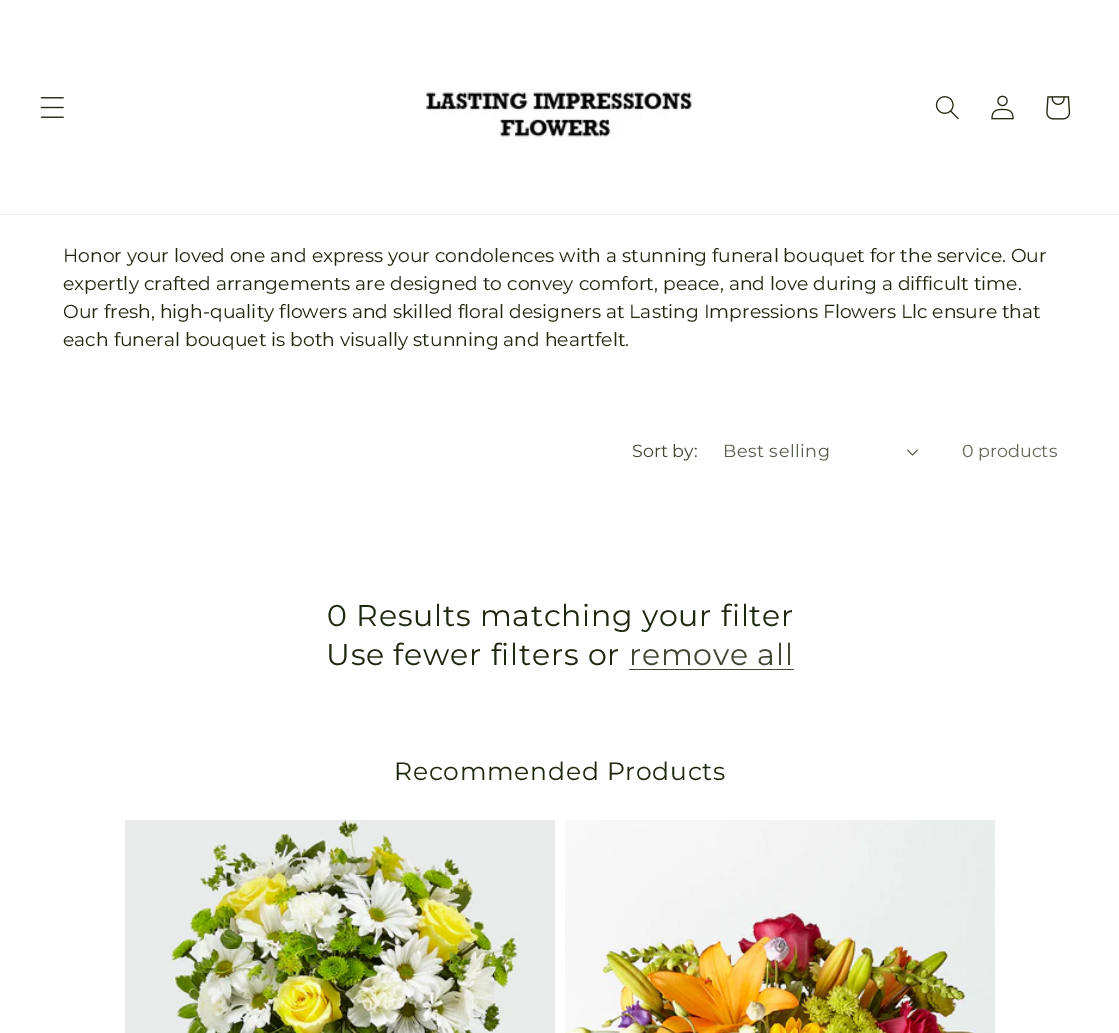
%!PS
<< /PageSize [1119 1033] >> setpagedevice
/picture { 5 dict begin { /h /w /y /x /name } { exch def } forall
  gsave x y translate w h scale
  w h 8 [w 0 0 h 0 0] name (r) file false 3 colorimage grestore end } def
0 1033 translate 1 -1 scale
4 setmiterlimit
1 setgray
0 0 1119 1033 rectfill
0.929 0.933 0.925 setrgbcolor
0 214 1119 1 rectfill
(img1.rgb) 40 97 24 21 picture
(img2.rgb) 426 90 266 49 picture
(img3.rgb) 935 96 24 24 picture
(img4.rgb) 991 95 23 25 picture
(img5.rgb) 1046 96 25 24 picture
/Montserrat-Regular [18.75 0 0 -18.75 0 0] selectfont
0.118 0.157 0.059 setrgbcolor
63 262 moveto (Honor your loved one and express your condolences with a stunning funeral bouquet for the service. Our) show
63 290 moveto (expertly crafted arrangements are designed to convey comfort, peace, and love during a difficult time.) show
63 318 moveto (Our fresh, high-quality flowers and skilled floral designers at Lasting Impressions Flowers Llc ensure that) show
63 346 moveto (each funeral bouquet is both visually stunning and heartfelt.) show
/Montserrat-Regular [17.5 0 0 -17.5 0 0] selectfont
0.251 0.282 0.2 setrgbcolor
632 457 moveto (Sort by:) show
0.337 0.369 0.294 setrgbcolor
723 457 moveto 0.5 0 (Best selling) ashow
(img6.rgb) 907 449 11 7 picture
0.384 0.412 0.341 setrgbcolor
962 457 moveto (0 products) show
/Montserrat-Regular [30 0 0 -30 0 0] selectfont
0.118 0.157 0.059 setrgbcolor
327 626 moveto 0.75 0 (0 Results matching your filter) ashow
326 665 moveto 0.75 0 (Use fewer filters or) ashow
0.251 0.282 0.2 setrgbcolor
629 665 moveto 0.75 0 (remove all) ashow
629 669 165 1 rectfill
/Montserrat-Regular [25 0 0 -25 0 0] selectfont
0.118 0.157 0.059 setrgbcolor
394 780 moveto 0.75 0 (Recommended Products) ashow
(img7.rgb) 125 820 430 213 picture
(img8.rgb) 565 820 430 213 picture
showpage
